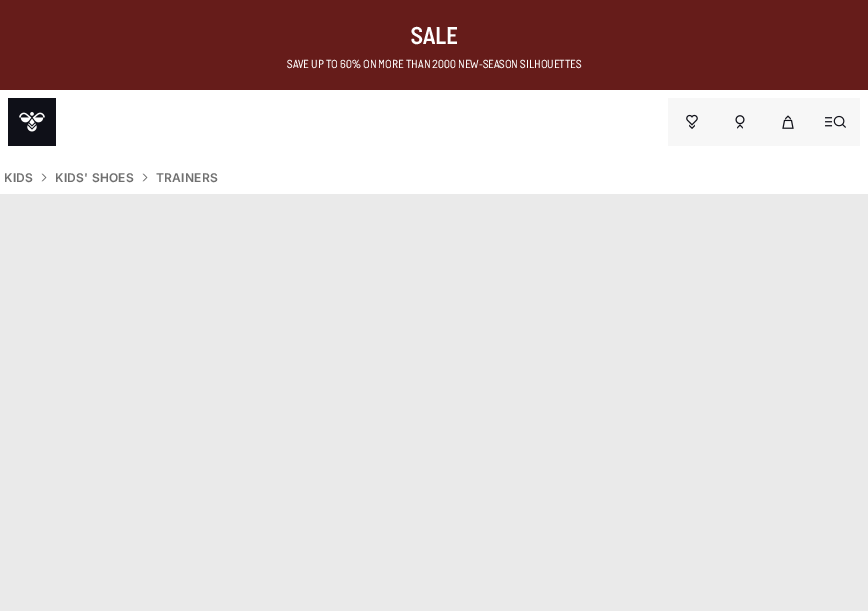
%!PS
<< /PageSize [868 611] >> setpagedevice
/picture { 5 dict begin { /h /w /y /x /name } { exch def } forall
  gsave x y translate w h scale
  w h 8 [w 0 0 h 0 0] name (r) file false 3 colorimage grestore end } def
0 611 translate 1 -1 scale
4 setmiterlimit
1 setgray
0 0 868 611 rectfill
0.4 0.11 0.102 setrgbcolor
0 0 868 90 rectfill
/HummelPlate-SemiBold [25 0 0 -25 0 0] selectfont
1 setgray
411 44 moveto (SALE) show
/HummelPlate-Regular [12 0 0 -12 0 0] selectfont
287 68 moveto (SAVE UP TO 60% ON MORE THAN 2000 NEW-SEASON SILHOUETTES) show
0.059 0.063 0.094 setrgbcolor
8 98 48 48 rectfill
(img1.rgb) 19 112 26 20 picture
0.969 setgray
668 98 96 48 rectfill
(img2.rgb) 686 114 12 15 picture
(img3.rgb) 735 115 10 14 picture
764 98 96 48 rectfill
(img4.rgb) 782 115 12 14 picture
(img5.rgb) 825 117 8 10 picture
(img6.rgb) 833 115 13 13 picture
/Inter-SemiBold [12 0 0 -12 0 0] selectfont
0.439 setgray
4 182 moveto 0.25 0 (KIDS) ashow
(img7.rgb) 41 173 6 9 picture
55 182 moveto 0.25 0 (KIDS' SHOES) ashow
(img7.rgb) 142 173 6 9 picture
156 182 moveto 0.25 0 (TRAINERS) ashow
0.918 setgray
0 194 868 417 rectfill
showpage
